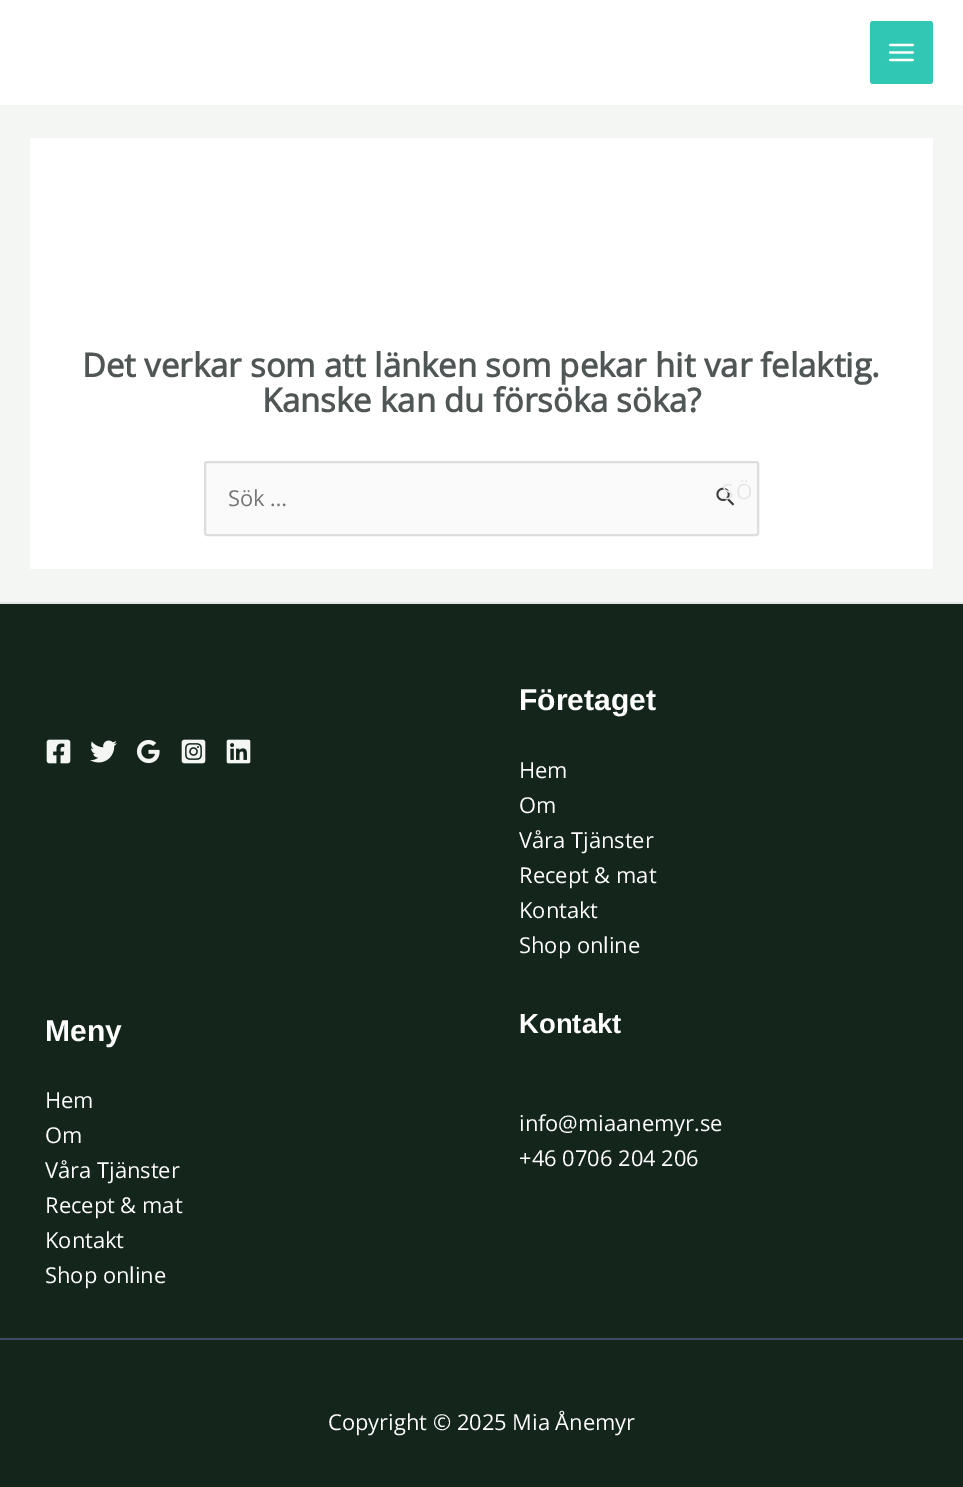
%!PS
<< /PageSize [963 1487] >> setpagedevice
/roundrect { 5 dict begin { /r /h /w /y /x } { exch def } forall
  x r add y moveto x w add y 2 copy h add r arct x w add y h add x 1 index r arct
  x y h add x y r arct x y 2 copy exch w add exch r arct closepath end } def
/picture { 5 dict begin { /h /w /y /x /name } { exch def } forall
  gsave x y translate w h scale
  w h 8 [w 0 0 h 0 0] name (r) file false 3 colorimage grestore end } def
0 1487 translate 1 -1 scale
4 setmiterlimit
0.953 0.965 0.953 setrgbcolor
0 0 963 1487 rectfill
1 setgray
0 0 963 105 rectfill
0.188 0.78 0.71 setrgbcolor
870 21 63 63 3 roundrect fill
(img1.rgb) 889 43 25 19 picture
1 setgray
30 138 903 431 rectfill
/OpenSans-Bold [32.8 0 0 -32.8 0 0] selectfont
0.31 0.337 0.333 setrgbcolor
82 377 moveto (Det verkar som att länken som pekar hit var felaktig.) show
262 412 moveto (Kanske kan du försöka söka?) show
0.98 setgray
205 462 553 73 2 roundrect gsave fill grestore
0.867 setgray
2 setlinewidth
stroke
/OpenSans-Regular [21.9 0 0 -21.9 0 0] selectfont
0.459 setgray
228 506 moveto (Sök …) show
(img2.rgb) 716 487 18 19 picture
/OpenSans-Regular [21 0 0 -21 0 0] selectfont
0.902 setgray
722 499 moveto 2 0 (SÖ) ashow
0.078 0.149 0.11 setrgbcolor
0 604 963 734 rectfill
0.902 setgray
0 602 963 2 rectfill
(img3.rgb) 46 739 25 25 picture
(img4.rgb) 90 740 27 23 picture
(img5.rgb) 136 739 24 25 picture
(img6.rgb) 181 739 25 25 picture
(img7.rgb) 226 739 25 25 picture
/LiberationSans-Bold [30 0 0 -30 0 0] selectfont
1 setgray
519 710 moveto (Företaget) show
/OpenSans-Regular [21.9 0 0 -21.9 0 0] selectfont
519 778 moveto (Hem) show
519 813 moveto (Om) show
519 848 moveto (Våra Tjänster) show
519 883 moveto (Recept & mat) show
519 918 moveto (Kontakt) show
519 953 moveto (Shop online) show
/LiberationSans-Bold [30 0 0 -30 0 0] selectfont
45 1041 moveto (Meny) show
/OpenSans-Regular [21.9 0 0 -21.9 0 0] selectfont
45 1108 moveto (Hem) show
45 1143 moveto (Om) show
45 1178 moveto (Våra Tjänster) show
45 1213 moveto (Recept & mat) show
45 1248 moveto (Kontakt) show
45 1283 moveto (Shop online) show
/LiberationSans-Bold [27.5 0 0 -27.5 0 0] selectfont
519 1033 moveto (Kontakt) show
/OpenSans-Regular [21.9 0 0 -21.9 0 0] selectfont
519 1131 moveto (info@miaanemyr.se) show
519 1166 moveto (+46 0706 204 206) show
0.078 0.149 0.11 setrgbcolor
0 1340 963 147 rectfill
0.255 0.286 0.4 setrgbcolor
0 1338 963 2 rectfill
1 setgray
328 1430 moveto (Copyright © 2025 Mia Ånemyr) show
showpage
